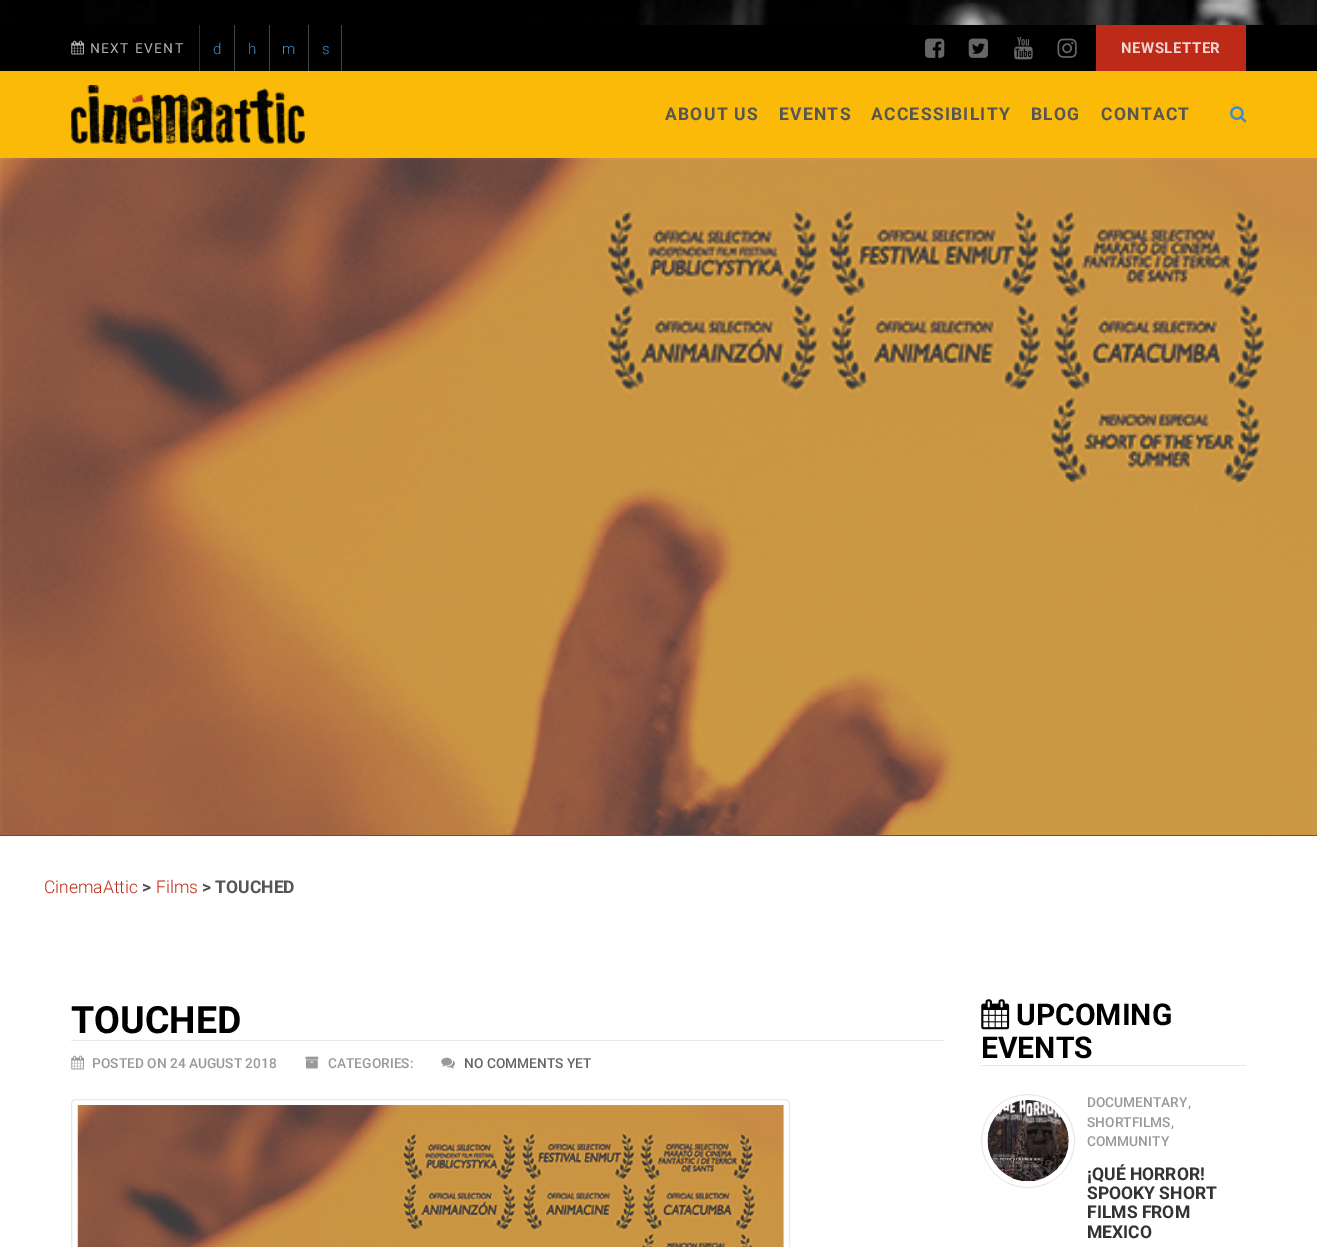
%!PS
<< /PageSize [1317 1247] /PageUsesTransparency true >> setpagedevice
/alpha { dup .setfillconstantalpha .setstrokeconstantalpha } def
/roundrect { 5 dict begin { /r /h /w /y /x } { exch def } forall
  x r add y moveto x w add y 2 copy h add r arct x w add y h add x 1 index r arct
  x y h add x y r arct x y 2 copy exch w add exch r arct closepath end } def
/shadow { 12 dict begin { /a /b /q /h /w /y /x } { exch def } forall gsave /was 0 def
  9 -2 -9 { dup b mul 4 div /e exch def 1 sub .425 mul 2.718 exch exp 1 add a .99 .min exch div /now exch def
    1 1 now sub 1 was sub div sub alpha /was now def
    w h .min e 2 mul add 0 gt { x e sub y e sub w e 2 mul add h e 2 mul add
      q e add b .6 mul add w h .min 2 div e add .min 0 .max roundrect fill } if } for grestore end } def
/picture { 5 dict begin { /h /w /y /x /name } { exch def } forall
  gsave x y translate w h scale
  w h 8 [w 0 0 h 0 0] name (r) file false 3 colorimage grestore end } def
0 .pushpdf14devicefilter
0 1247 translate 1 -1 scale
4 setmiterlimit
1 setgray
0 0 1317 1247 rectfill
(img1.rgb) 0 0 1317 25 picture
0 setgray
0 25 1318 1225 0 1 0.2 shadow
1 setgray
0 836 1317 411 rectfill
0 setgray
0 25 1317 46 rectfill
0.169 0.196 0.208 setrgbcolor
199 25 1 46 rectfill
(img2.rgb) 71 40 13 15 picture
/Roboto-Regular [13.75 0 0 -13.75 0 0] selectfont
0.702 setgray
90 53 moveto 1.4 0 (NEXT EVENT) ashow
0.239 0.278 0.298 setrgbcolor
234 25 1 46 rectfill
/Roboto-Light [15 0 0 -15 0 0] selectfont
0.259 0.545 0.792 setrgbcolor
213 54 moveto (d) show
0.239 0.278 0.298 setrgbcolor
269 25 1 46 rectfill
0.259 0.545 0.792 setrgbcolor
248 54 moveto (h) show
0.239 0.278 0.298 setrgbcolor
308 25 1 46 rectfill
0.259 0.545 0.792 setrgbcolor
282 54 moveto (m) show
0.239 0.278 0.298 setrgbcolor
341 25 1 46 rectfill
0.259 0.545 0.792 setrgbcolor
322 54 moveto (s) show
(img3.rgb) 925 38 20 20 picture
(img4.rgb) 968 38 20 20 picture
(img5.rgb) 1014 36 19 24 picture
(img6.rgb) 1057 38 20 20 picture
0.741 0.169 0.094 setrgbcolor
1096 25 150 46 rectfill
/Roboto-Bold [15 0 0 -15 0 0] selectfont
0.949 0.835 0.82 setrgbcolor
1121 53 moveto 0.5 0 (NEWSLETTER) ashow
0.984 0.729 0.027 setrgbcolor
0 71 1317 87 rectfill
(img7.rgb) 71 85 234 59 picture
/Roboto-Bold [17.5 0 0 -17.5 0 0] selectfont
0.333 setgray
665 120 moveto 1.25 0 (ABOUT US) ashow
779 120 moveto 1.25 0 (EVENTS) ashow
871 120 moveto 1.25 0 (ACCESSIBILITY) ashow
1031 120 moveto 1.25 0 (BLOG) ashow
1101 120 moveto 1.25 0 (CONTACT) ashow
(img8.rgb) 1230 106 17 17 picture
0.741 0.169 0.094 setrgbcolor
0 835 1317 1 rectfill
(img9.rgb) 0 158 1317 677 picture
/Roboto-Light [17.5 0 0 -17.5 0 0] selectfont
44 893 moveto (CinemaAttic) show
/Roboto-Bold [17.5 0 0 -17.5 0 0] selectfont
0.333 setgray
142 893 moveto (>) show
/Roboto-Light [17.5 0 0 -17.5 0 0] selectfont
0.741 0.169 0.094 setrgbcolor
156 893 moveto (Films) show
/Roboto-Bold [17.5 0 0 -17.5 0 0] selectfont
0.333 setgray
202 893 moveto (> TOUCHED) show
0.91 setgray
71 1040 873 1 rectfill
/Roboto-Bold [37.5 0 0 -37.5 0 0] selectfont
0 setgray
71 1033 moveto (TOUCHED) show
(img10.rgb) 71 1055 13 15 picture
/Roboto-Medium [13.75 0 0 -13.75 0 0] selectfont
0.6 setgray
92 1068 moveto (POSTED ON 24 AUGUST 2018) show
(img11.rgb) 305 1056 14 13 picture
328 1068 moveto (CATEGORIES:) show
(img12.rgb) 441 1057 14 12 picture
0.4 setgray
464 1068 moveto (NO COMMENTS YET) show
0.91 setgray
71.5 1099.5 718 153 4.5 roundrect stroke
(img13.rgb) 77 1105 707 142 picture
981 1065 265 1 rectfill
(img14.rgb) 981 999 29 31 picture
/Roboto-Bold [30 0 0 -30 0 0] selectfont
0 setgray
1016 1025 moveto (UPCOMING) show
981 1058 moveto (EVENTS) show
0.91 setgray
newpath 1028 1141 46.5 0 360 arc closepath stroke
(img15.rgb) 987 1100 82 82 picture
/Roboto-Medium [13.75 0 0 -13.75 0 0] selectfont
0.6 setgray
1087 1107 moveto (DOCUMENTARY,) show
1087 1127 moveto (SHORTFILMS,) show
1087 1146 moveto (COMMUNITY) show
/Roboto-Bold [17.5 0 0 -17.5 0 0] selectfont
0.2 setgray
1087 1180 moveto (¡QUÉ HORROR!) show
1087 1199 moveto (SPOOKY SHORT) show
1087 1218 moveto (FILMS FROM) show
1087 1238 moveto (MEXICO) show
/Roboto-Medium [13.75 0 0 -13.75 0 0] selectfont
0.255 0.227 0.224 setrgbcolor
1004 1170 moveto (DEC, 25) show
.poppdf14devicefilter showpage
